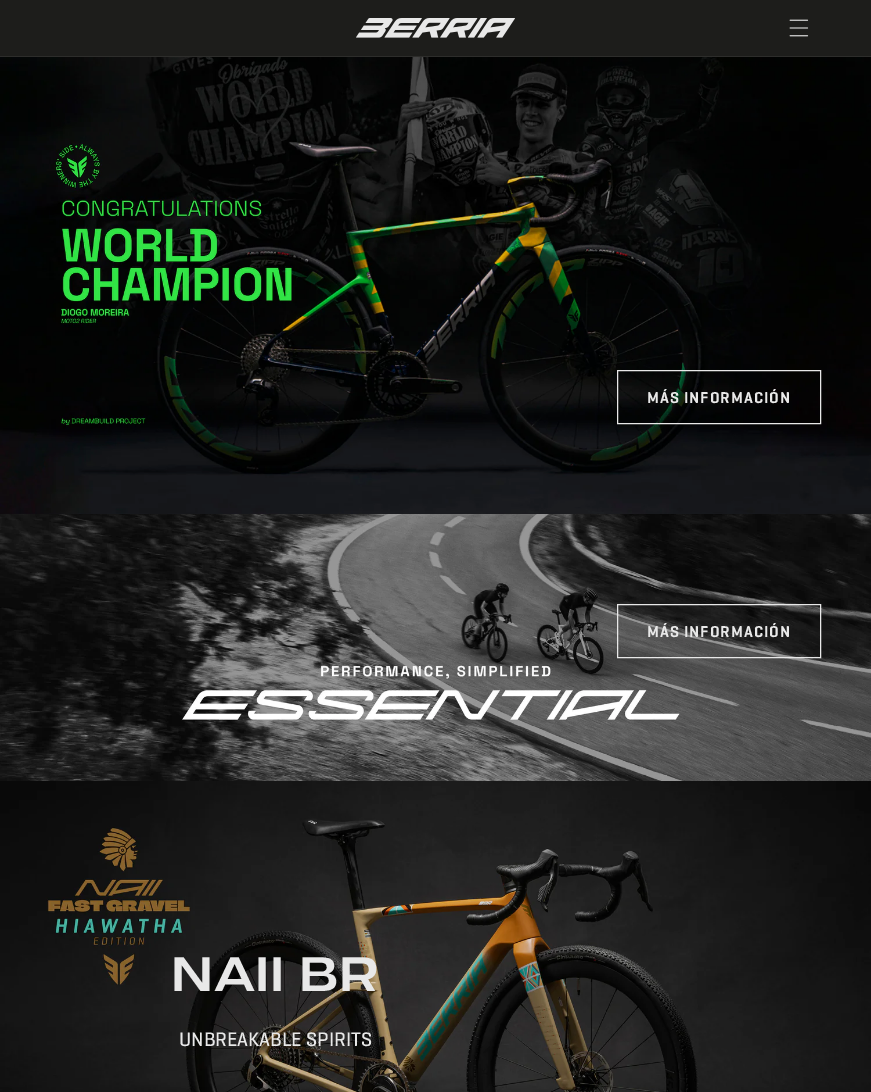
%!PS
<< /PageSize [871 1092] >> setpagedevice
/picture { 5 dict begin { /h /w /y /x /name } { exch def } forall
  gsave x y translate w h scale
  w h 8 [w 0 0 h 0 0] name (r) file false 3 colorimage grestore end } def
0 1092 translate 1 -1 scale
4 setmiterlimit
1 setgray
0 0 871 1092 rectfill
0.114 0.114 0.106 setrgbcolor
0 0 871 56 rectfill
0.176 0.176 0.169 setrgbcolor
0 56 871 1 rectfill
(img1.rgb) 356 18 159 20 picture
(img2.rgb) 789 19 20 18 picture
(img3.rgb) 0 57 871 457 picture
0.91 setgray
617.5 370.5 203 53 rectstroke
/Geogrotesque-SemiBold [16 0 0 -16 0 0] selectfont
647 403 moveto 1 0 (MÁS INFORMACIÓN) ashow
(img4.rgb) 0 514 871 267 picture
617.5 604.5 203 53 rectstroke
647 637 moveto 1 0 (MÁS INFORMACIÓN) ashow
(img5.rgb) 0 781 871 311 picture
/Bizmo-SemiBold [52 0 0 -52 0 0] selectfont
171 991 moveto 0.5 0 (NAII BR) ashow
/Geogrotesque-Medium [20 0 0 -20 0 0] selectfont
179 1046 moveto (UNBREAKABLE SPIRITS) show
showpage
